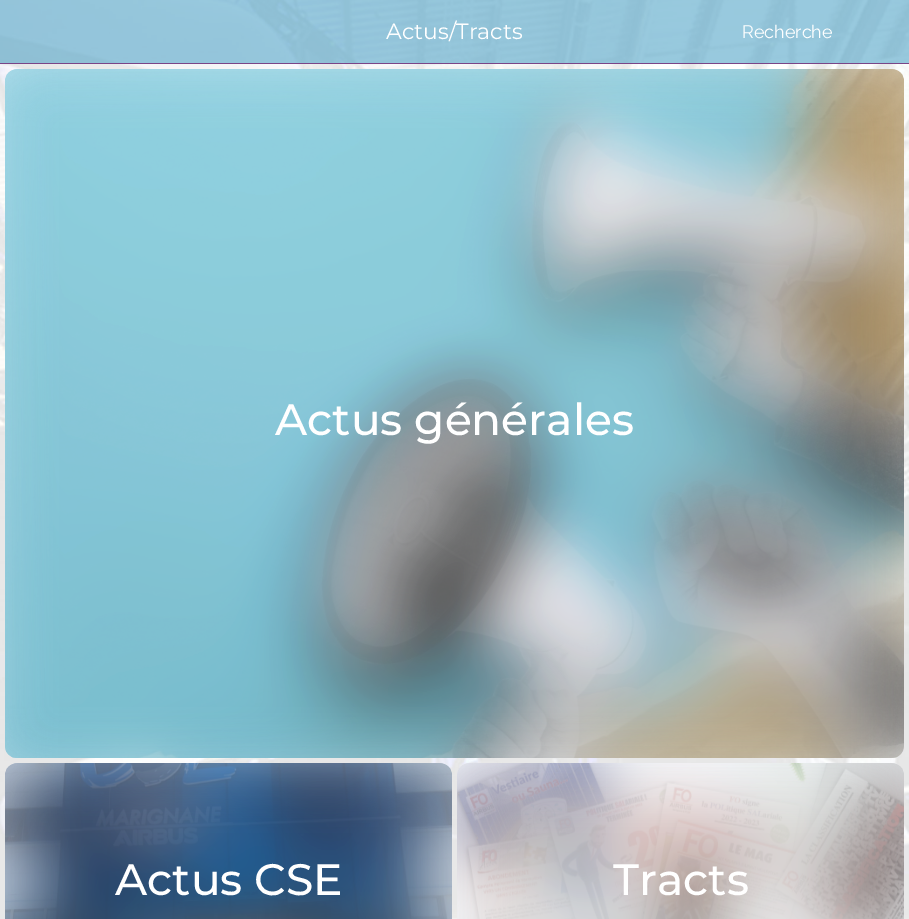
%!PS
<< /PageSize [909 919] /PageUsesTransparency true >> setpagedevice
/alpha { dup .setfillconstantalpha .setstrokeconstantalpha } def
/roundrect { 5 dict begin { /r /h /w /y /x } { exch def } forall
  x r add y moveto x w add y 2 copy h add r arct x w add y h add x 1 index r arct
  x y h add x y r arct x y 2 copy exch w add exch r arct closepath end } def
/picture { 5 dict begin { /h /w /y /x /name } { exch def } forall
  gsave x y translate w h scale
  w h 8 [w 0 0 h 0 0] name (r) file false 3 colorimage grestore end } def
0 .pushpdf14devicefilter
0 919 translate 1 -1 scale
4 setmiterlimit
1 setgray
0 0 909 919 rectfill
(img8.rgb) 0 918 909 1 picture
(img1.rgb) 0 0 909 919 picture
0.475 0.271 0.529 setrgbcolor
0 63 909 1 rectfill
0.58 alpha
0.306 0.635 0.776 setrgbcolor
0 0 909 63 rectfill
/Montserrat-Regular [22 0 0 -22 0 0] selectfont
1 alpha
1 setgray
386 39 moveto (Actus/Tracts) show
/Raleway-Regular [18 0 0 -18 0 0] selectfont
742 38 moveto (Recherche) show
(img2.rgb) 5 69 899 689 picture
0.6 alpha
0.941 0.973 1 setrgbcolor
5 69 899 689 12 roundrect fill
1 alpha
(img3.rgb) 5 69 899 689 picture
/Montserrat-Medium [44 0 0 -44 0 0] selectfont
1 setgray
275 435 moveto (Actus générales) show
(img4.rgb) 5 763 447 156 picture
0.6 alpha
0.941 0.973 1 setrgbcolor
5 763 447 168 12 roundrect fill
1 alpha
(img5.rgb) 5 763 447 156 picture
1 setgray
115 895 moveto (Actus CSE) show
(img6.rgb) 457 763 447 156 picture
0.6 alpha
0.941 0.973 1 setrgbcolor
457 763 447 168 12 roundrect fill
1 alpha
(img7.rgb) 457 763 447 156 picture
1 setgray
613 895 moveto (Tracts) show
.poppdf14devicefilter showpage
